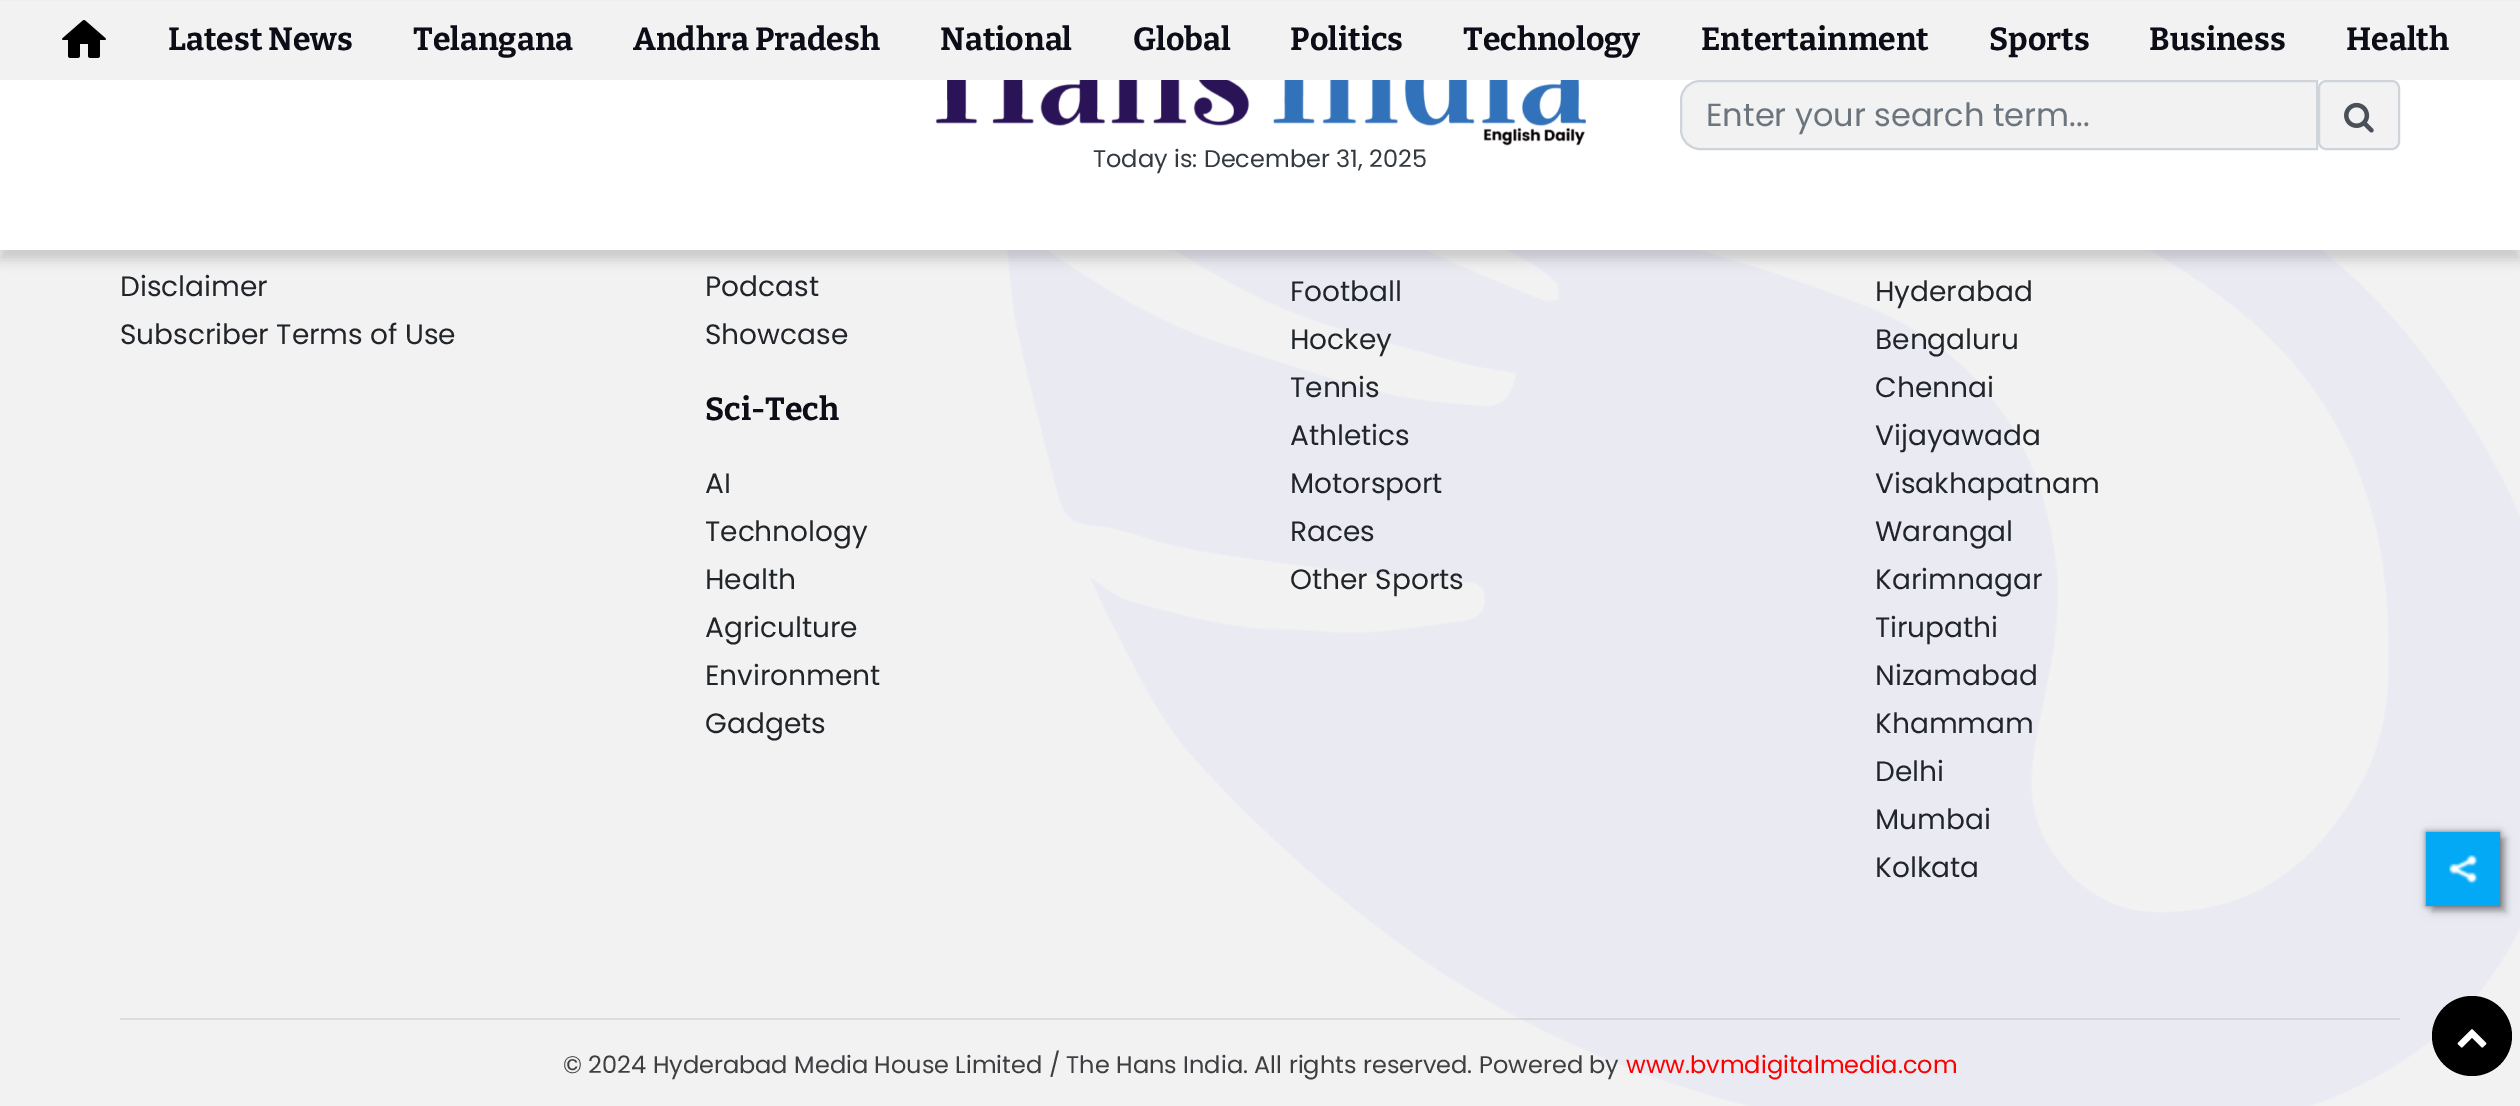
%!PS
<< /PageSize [2520 1106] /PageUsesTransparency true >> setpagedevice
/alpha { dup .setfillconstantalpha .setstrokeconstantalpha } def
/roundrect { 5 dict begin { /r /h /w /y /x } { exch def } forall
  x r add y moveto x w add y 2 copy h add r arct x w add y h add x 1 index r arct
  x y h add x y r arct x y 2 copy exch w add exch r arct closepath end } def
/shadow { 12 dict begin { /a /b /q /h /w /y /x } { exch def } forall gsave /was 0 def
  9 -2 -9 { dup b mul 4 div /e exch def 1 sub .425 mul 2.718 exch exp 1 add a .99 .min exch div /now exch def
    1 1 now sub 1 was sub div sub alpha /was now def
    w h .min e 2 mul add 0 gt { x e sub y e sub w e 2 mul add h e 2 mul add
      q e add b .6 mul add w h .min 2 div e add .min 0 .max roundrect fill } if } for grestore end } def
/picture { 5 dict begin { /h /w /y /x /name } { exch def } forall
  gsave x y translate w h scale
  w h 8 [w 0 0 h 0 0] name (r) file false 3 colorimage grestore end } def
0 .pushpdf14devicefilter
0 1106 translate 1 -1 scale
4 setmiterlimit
0.949 0.949 0.953 setrgbcolor
0 0 2520 1106 rectfill
(img4.rgb) 1007 250 1513 856 picture
0 setgray
0 10 2520 250 0 6 0.16 shadow
0.949 0.949 0.953 setrgbcolor
0 1 2520 79 rectfill
(img1.rgb) 62 20 44 38 picture
/Bitter-Bold [32 0 0 -32 0 0] selectfont
0.047 0.051 0.086 setrgbcolor
168 50 moveto (Latest News) show
413 50 moveto (Telangana) show
633 50 moveto (Andhra Pradesh) show
940 50 moveto (National) show
1133 50 moveto (Global) show
1290 50 moveto (Politics) show
1463 50 moveto (Technology) show
1701 50 moveto (Entertainment) show
1989 50 moveto (Sports) show
2149 50 moveto (Business) show
2346 50 moveto (Health) show
1 setgray
0 80 2520 170 rectfill
0.949 0.949 0.953 setrgbcolor
newpath 1700 81 moveto 2317 81 lineto 2317 149 lineto 1700 149 lineto 1689.5 149 1681 140.5 1681 130 curveto 1681 100 lineto 1681 89.5 1689.5 81 1700 81 curveto closepath gsave fill grestore
0.808 0.831 0.855 setrgbcolor
2 setlinewidth
stroke
/Poppins-Regular [32 0 0 -32 0 0] selectfont
0.424 0.459 0.49 setrgbcolor
1706 126 moveto (Enter your search term...) show
0.949 0.949 0.953 setrgbcolor
2319 81 80 68 7 roundrect gsave fill grestore
0.808 0.831 0.855 setrgbcolor
stroke
(img2.rgb) 2344 102 30 31 picture
(img3.rgb) 935 80 651 66 picture
/Poppins-Regular [24 0 0 -24 0 0] selectfont
0.204 0.227 0.251 setrgbcolor
1093 167 moveto (Today is: December 31, 2025) show
/Poppins-Regular [28 0 0 -28 0 0] selectfont
0.129 0.145 0.161 setrgbcolor
120 296 moveto (Disclaimer) show
120 344 moveto (Subscriber Terms of Use) show
705 296 moveto (Podcast) show
705 344 moveto (Showcase) show
/Bitter-Bold [32 0 0 -32 0 0] selectfont
0.047 0.051 0.086 setrgbcolor
705 420 moveto (Sci-Tech) show
/Poppins-Regular [28 0 0 -28 0 0] selectfont
0.129 0.145 0.161 setrgbcolor
705 493 moveto (AI) show
705 541 moveto (Technology) show
705 589 moveto (Health) show
705 637 moveto (Agriculture) show
705 685 moveto (Environment) show
705 733 moveto (Gadgets) show
1290 301 moveto (Football) show
1290 349 moveto (Hockey) show
1290 397 moveto (Tennis) show
1290 445 moveto (Athletics) show
1290 493 moveto (Motorsport) show
1290 541 moveto (Races) show
1290 589 moveto (Other Sports) show
1875 301 moveto (Hyderabad) show
1875 349 moveto (Bengaluru) show
1875 397 moveto (Chennai) show
1875 445 moveto (Vijayawada) show
1875 493 moveto (Visakhapatnam) show
1875 541 moveto (Warangal) show
1875 589 moveto (Karimnagar) show
1875 637 moveto (Tirupathi) show
1875 685 moveto (Nizamabad) show
1875 733 moveto (Khammam) show
1875 781 moveto (Delhi) show
1875 829 moveto (Mumbai) show
1875 877 moveto (Kolkata) show
0.1 alpha
120 1018 2280 2 rectfill
/Poppins-Regular [24 0 0 -24 0 0] selectfont
1 alpha
0.247 0.247 0.259 setrgbcolor
563 1073 moveto (© 2024 Hyderabad Media House Limited / The Hans India. All rights reserved. Powered by) show
1 0 0 setrgbcolor
1626 1073 moveto (www.bvmdigitalmedia.com) show
0 setgray
2430 836 70 70 0 10 0.05 shadow
2432 838 74 74 0 3 0.25 shadow
2426 832 74 74 0 3 0.5 shadow
0.012 0.663 0.957 setrgbcolor
2426 832 74 74 rectfill
(img5.rgb) 2449 855 29 29 picture
0 setgray
newpath 2472 1036 40 0 360 arc closepath fill
(img6.rgb) 2457 1029 30 19 picture
.poppdf14devicefilter showpage
